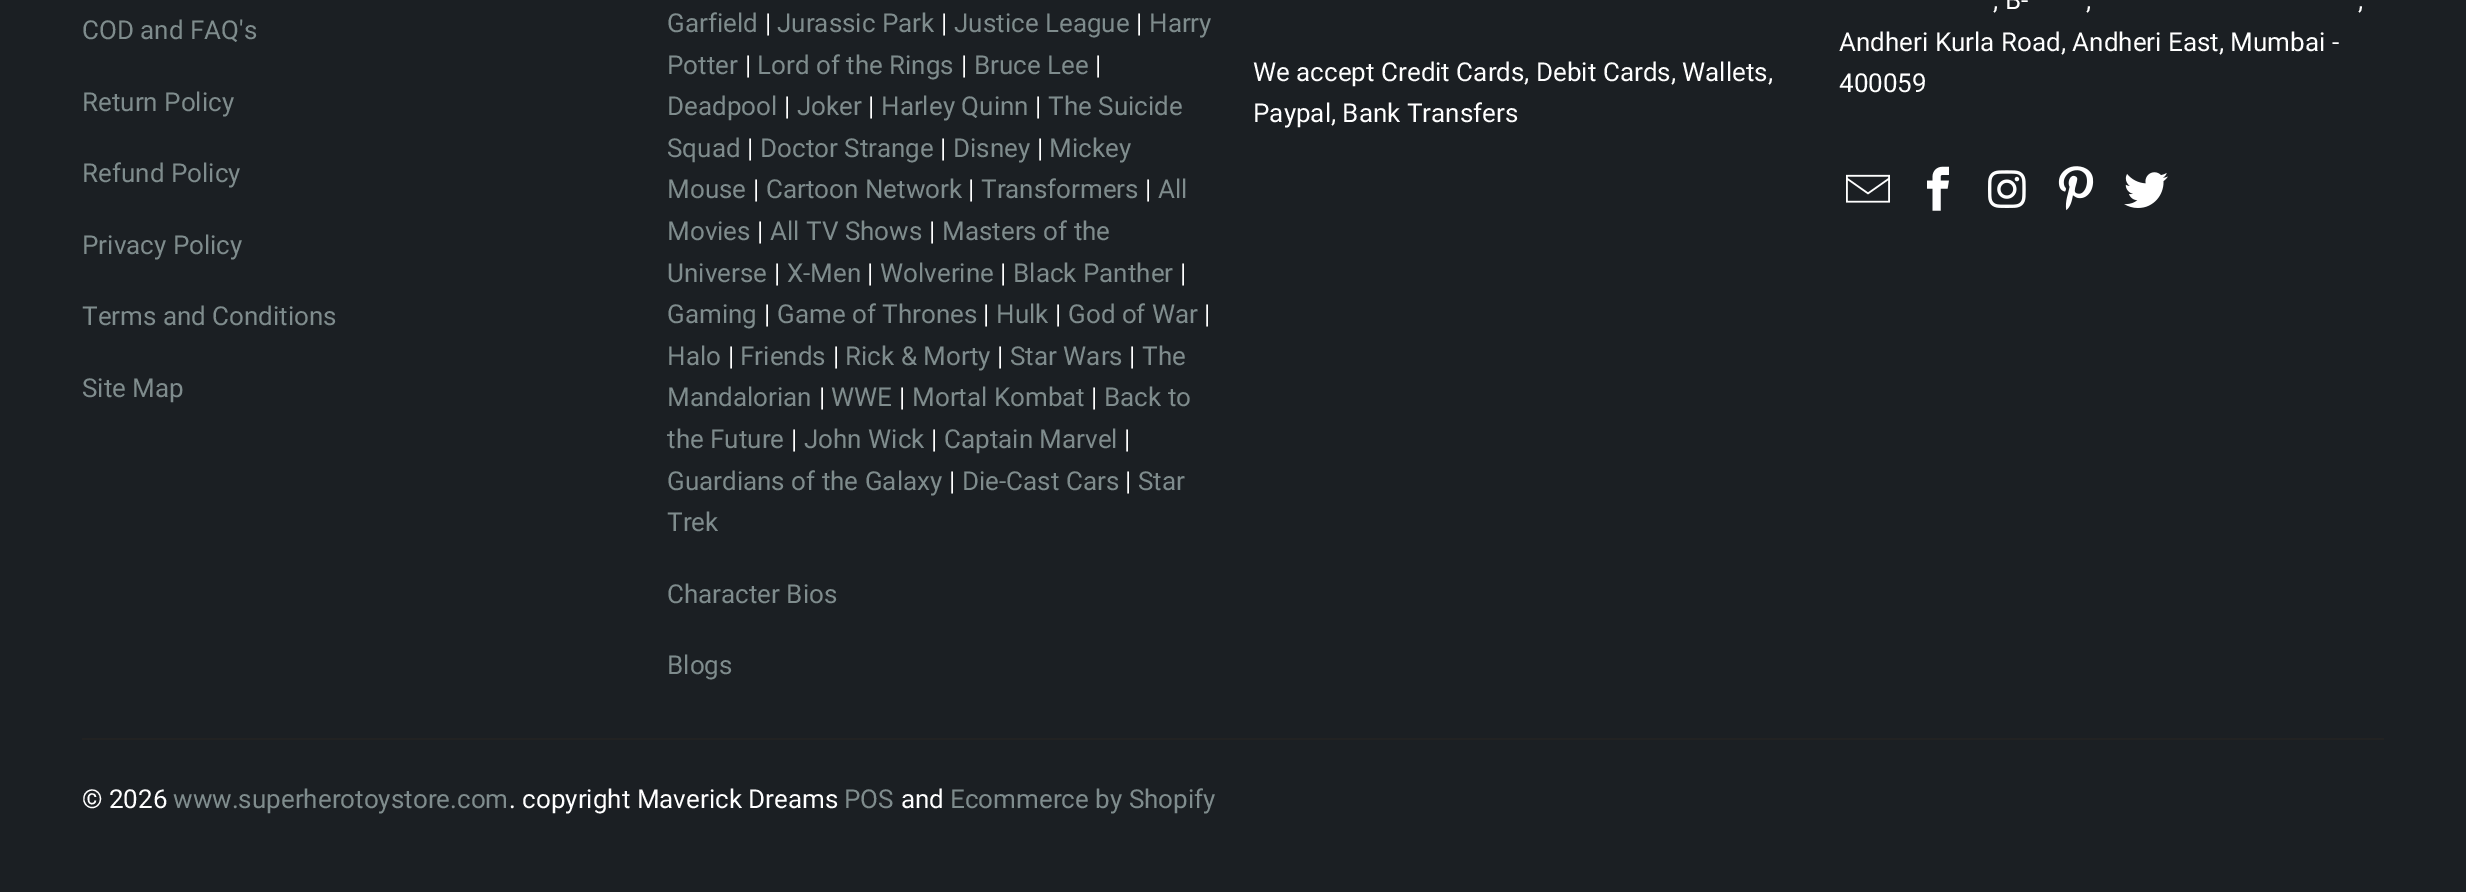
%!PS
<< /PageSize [2466 892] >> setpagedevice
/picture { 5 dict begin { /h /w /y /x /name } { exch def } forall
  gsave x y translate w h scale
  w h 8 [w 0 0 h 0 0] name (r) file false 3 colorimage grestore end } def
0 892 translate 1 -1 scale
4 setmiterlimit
0.106 0.122 0.137 setrgbcolor
0 0 2466 892 rectfill
/Roboto-Regular [26 0 0 -26 0 0] selectfont
0.498 0.549 0.553 setrgbcolor
82 39 moveto (COD and FAQ's) show
82 111 moveto (Return Policy) show
82 182 moveto (Refund Policy) show
82 254 moveto (Privacy Policy) show
82 325 moveto (Terms and Conditions) show
82 397 moveto (Site Map) show
667 32 moveto (Garfield) show
1 setgray
765 32 moveto (|) show
0.498 0.549 0.553 setrgbcolor
777 32 moveto (Jurassic Park) show
1 setgray
941 32 moveto (|) show
0.498 0.549 0.553 setrgbcolor
954 32 moveto (Justice League) show
1 setgray
1136 32 moveto (|) show
0.498 0.549 0.553 setrgbcolor
1149 32 moveto (Harry) show
667 74 moveto (Potter) show
1 setgray
745 74 moveto (|) show
0.498 0.549 0.553 setrgbcolor
757 74 moveto (Lord of the Rings) show
1 setgray
961 74 moveto (|) show
0.498 0.549 0.553 setrgbcolor
974 74 moveto (Bruce Lee) show
1 setgray
1095 74 moveto (|) show
0.498 0.549 0.553 setrgbcolor
667 115 moveto (Deadpool) show
1 setgray
784 115 moveto (|) show
0.498 0.549 0.553 setrgbcolor
797 115 moveto (Joker) show
1 setgray
868 115 moveto (|) show
0.498 0.549 0.553 setrgbcolor
881 115 moveto (Harley Quinn) show
1 setgray
1035 115 moveto (|) show
0.498 0.549 0.553 setrgbcolor
1048 115 moveto (The Suicide) show
667 157 moveto (Squad) show
1 setgray
747 157 moveto (|) show
0.498 0.549 0.553 setrgbcolor
760 157 moveto (Doctor Strange) show
1 setgray
940 157 moveto (|) show
0.498 0.549 0.553 setrgbcolor
953 157 moveto (Disney) show
1 setgray
1037 157 moveto (|) show
0.498 0.549 0.553 setrgbcolor
1049 157 moveto (Mickey) show
667 198 moveto (Mouse) show
1 setgray
753 198 moveto (|) show
0.498 0.549 0.553 setrgbcolor
766 198 moveto (Cartoon Network) show
1 setgray
968 198 moveto (|) show
0.498 0.549 0.553 setrgbcolor
981 198 moveto (Transformers) show
1 setgray
1145 198 moveto (|) show
0.498 0.549 0.553 setrgbcolor
1158 198 moveto (All) show
667 240 moveto (Movies) show
1 setgray
757 240 moveto (|) show
0.498 0.549 0.553 setrgbcolor
770 240 moveto (All TV Shows) show
1 setgray
929 240 moveto (|) show
0.498 0.549 0.553 setrgbcolor
942 240 moveto (Masters of the) show
667 282 moveto (Universe) show
1 setgray
774 282 moveto (|) show
0.498 0.549 0.553 setrgbcolor
787 282 moveto (X-Men) show
1 setgray
867 282 moveto (|) show
0.498 0.549 0.553 setrgbcolor
880 282 moveto (Wolverine) show
1 setgray
1000 282 moveto (|) show
0.498 0.549 0.553 setrgbcolor
1013 282 moveto (Black Panther) show
1 setgray
1180 282 moveto (|) show
0.498 0.549 0.553 setrgbcolor
667 323 moveto (Gaming) show
1 setgray
764 323 moveto (|) show
0.498 0.549 0.553 setrgbcolor
777 323 moveto (Game of Thrones) show
1 setgray
983 323 moveto (|) show
0.498 0.549 0.553 setrgbcolor
996 323 moveto (Hulk) show
1 setgray
1055 323 moveto (|) show
0.498 0.549 0.553 setrgbcolor
1068 323 moveto (God of War) show
1 setgray
1204 323 moveto (|) show
0.498 0.549 0.553 setrgbcolor
667 365 moveto (Halo) show
1 setgray
728 365 moveto (|) show
0.498 0.549 0.553 setrgbcolor
740 365 moveto (Friends) show
1 setgray
833 365 moveto (|) show
0.498 0.549 0.553 setrgbcolor
845 365 moveto (Rick & Morty) show
1 setgray
997 365 moveto (|) show
0.498 0.549 0.553 setrgbcolor
1010 365 moveto (Star Wars) show
1 setgray
1129 365 moveto (|) show
0.498 0.549 0.553 setrgbcolor
1142 365 moveto (The) show
667 406 moveto (Mandalorian) show
1 setgray
819 406 moveto (|) show
0.498 0.549 0.553 setrgbcolor
831 406 moveto (WWE) show
1 setgray
899 406 moveto (|) show
0.498 0.549 0.553 setrgbcolor
912 406 moveto (Mortal Kombat) show
1 setgray
1091 406 moveto (|) show
0.498 0.549 0.553 setrgbcolor
1104 406 moveto (Back to) show
667 448 moveto (the Future) show
1 setgray
791 448 moveto (|) show
0.498 0.549 0.553 setrgbcolor
804 448 moveto (John Wick) show
1 setgray
931 448 moveto (|) show
0.498 0.549 0.553 setrgbcolor
944 448 moveto (Captain Marvel) show
1 setgray
1124 448 moveto (|) show
0.498 0.549 0.553 setrgbcolor
667 490 moveto (Guardians of the Galaxy) show
1 setgray
949 490 moveto (|) show
0.498 0.549 0.553 setrgbcolor
962 490 moveto (Die-Cast Cars) show
1 setgray
1125 490 moveto (|) show
0.498 0.549 0.553 setrgbcolor
1138 490 moveto (Star) show
667 531 moveto (Trek) show
667 603 moveto (Character Bios) show
667 674 moveto (Blogs) show
1 setgray
1253 81 moveto (We accept Credit Cards, Debit Cards, Wallets,) show
1253 122 moveto (Paypal, Bank Transfers) show
1993 9 moveto (, B-) show
2086 9 moveto (,) show
2358 9 moveto (,) show
1839 51 moveto (Andheri Kurla Road, Andheri East, Mumbai -) show
1839 92 moveto (400059) show
(img1.rgb) 1846 174 44 29 picture
(img2.rgb) 1927 166 22 45 picture
(img3.rgb) 1988 170 38 38 picture
(img4.rgb) 2058 166 36 45 picture
(img5.rgb) 2124 172 44 36 picture
0.133 setgray
82 738 2302 2 rectfill
1 setgray
82 808 moveto (© 2026) show
0.498 0.549 0.553 setrgbcolor
173 808 moveto (www.superherotoystore.com) show
1 setgray
509 808 moveto (. copyright Maverick Dreams) show
0.498 0.549 0.553 setrgbcolor
844 808 moveto (POS) show
1 setgray
901 808 moveto (and) show
0.498 0.549 0.553 setrgbcolor
950 808 moveto (Ecommerce by Shopify) show
showpage
